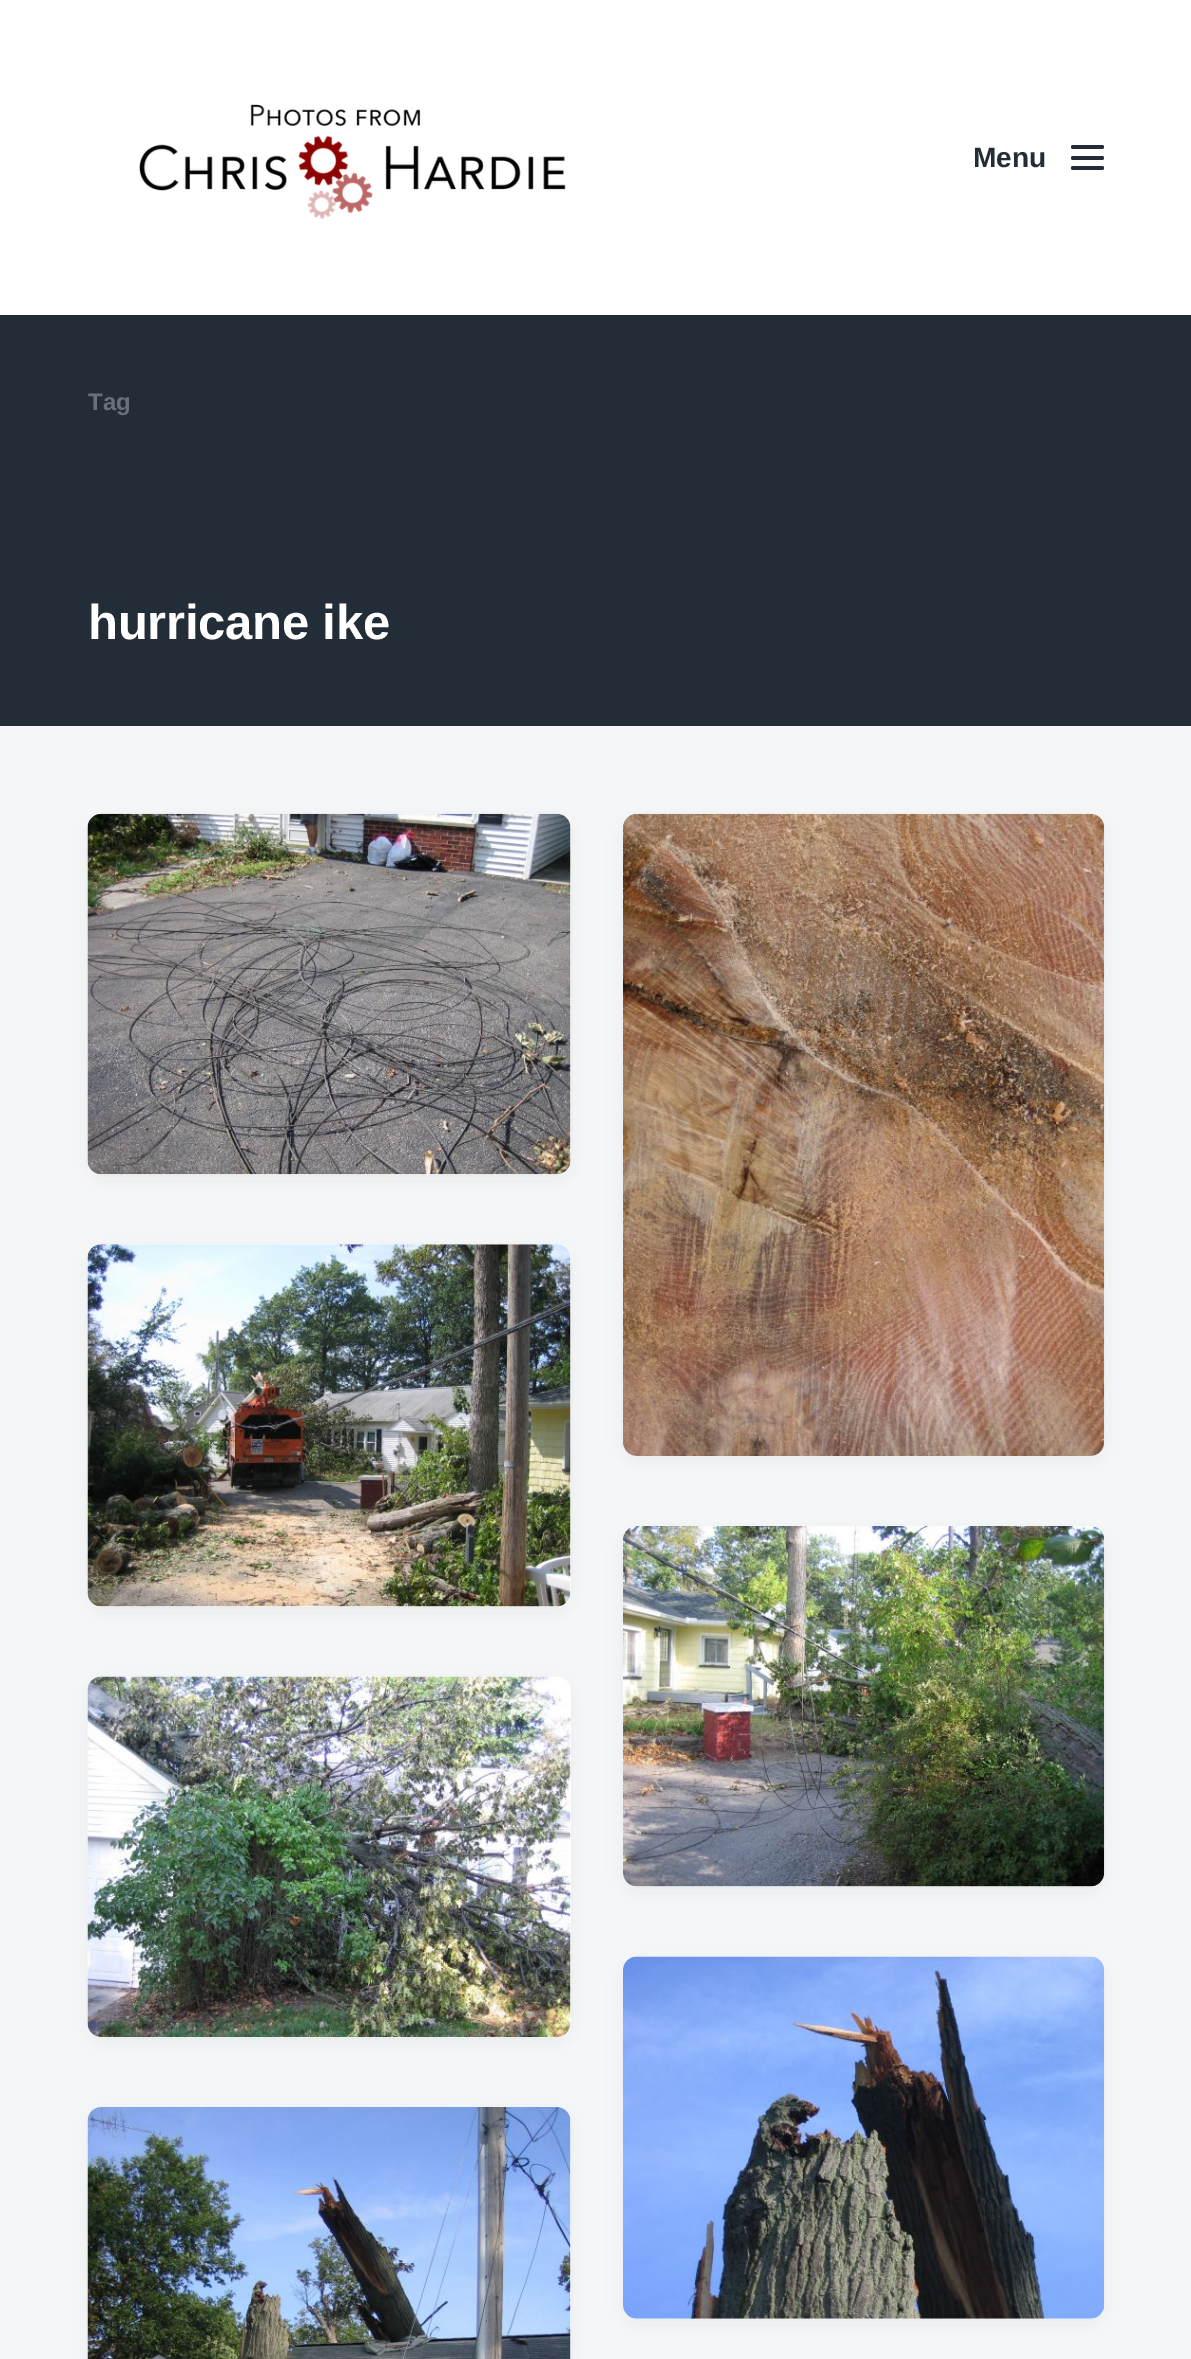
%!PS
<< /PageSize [1191 2359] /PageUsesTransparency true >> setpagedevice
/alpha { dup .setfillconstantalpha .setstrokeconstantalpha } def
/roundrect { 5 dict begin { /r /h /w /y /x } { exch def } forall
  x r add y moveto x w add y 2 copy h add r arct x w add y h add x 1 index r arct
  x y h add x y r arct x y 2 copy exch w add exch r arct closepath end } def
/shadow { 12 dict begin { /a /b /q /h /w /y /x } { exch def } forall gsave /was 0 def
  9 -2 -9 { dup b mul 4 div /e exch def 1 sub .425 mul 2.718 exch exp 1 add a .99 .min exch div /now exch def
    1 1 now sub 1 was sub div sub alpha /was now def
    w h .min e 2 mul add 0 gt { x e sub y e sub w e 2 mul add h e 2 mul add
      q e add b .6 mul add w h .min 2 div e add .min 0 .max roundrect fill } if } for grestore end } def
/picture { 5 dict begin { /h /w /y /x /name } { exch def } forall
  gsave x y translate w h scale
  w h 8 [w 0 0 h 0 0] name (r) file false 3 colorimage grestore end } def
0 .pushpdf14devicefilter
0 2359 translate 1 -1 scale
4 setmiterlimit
0.965 0.969 0.973 setrgbcolor
0 0 1191 2359 rectfill
1 setgray
0 0 1191 315 rectfill
(img1.rgb) 139 104 427 115 picture
/LiberationSans-Bold [28 0 0 -28 0 0] selectfont
0.137 0.176 0.216 setrgbcolor
973 167 moveto (Menu) show
1071 145 33 4 2 roundrect fill
1071 156 33 4 2 roundrect fill
1071 166 33 4 2 roundrect fill
0 315 1191 411 rectfill
/LiberationSans-Bold [24 0 0 -24 0 0] selectfont
0.408 0.443 0.482 setrgbcolor
88 410 moveto (Tag) show
/LiberationSans-Bold [49 0 0 -49 0 0] selectfont
1 setgray
88 639 moveto -0.25 0 (hurricane ike) ashow
0.02 0.039 0.059 setrgbcolor
88 819 483 361 14 10.5 0.05 shadow
1 setgray
88 814 483 360 14 roundrect fill
(img2.rgb) 87 813 484 362 picture
0.02 0.039 0.059 setrgbcolor
623 819 481 642 14 10.5 0.05 shadow
(img3.rgb) 623 813 482 643 picture
88 1250 483 362 14 10.5 0.05 shadow
1 setgray
88 1244 483 363 14 roundrect fill
(img4.rgb) 87 1244 484 363 picture
0.02 0.039 0.059 setrgbcolor
88 1682 483 360 14 10.5 0.05 shadow
1 setgray
88 1677 483 360 14 roundrect fill
(img5.rgb) 87 1676 484 361 picture
0.02 0.039 0.059 setrgbcolor
623 1531 481 361 14 10.5 0.05 shadow
1 setgray
623 1526 481 361 14 roundrect fill
(img6.rgb) 623 1526 482 361 picture
0.02 0.039 0.059 setrgbcolor
88 2112 483 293 14 10.5 0.05 shadow
1 setgray
88 2107 483 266 14 roundrect fill
(img7.rgb) 87 2107 484 252 picture
0.02 0.039 0.059 setrgbcolor
623 1962 481 362 14 10.5 0.05 shadow
1 setgray
623 1957 481 362 14 roundrect fill
(img8.rgb) 623 1956 482 363 picture
.poppdf14devicefilter showpage
